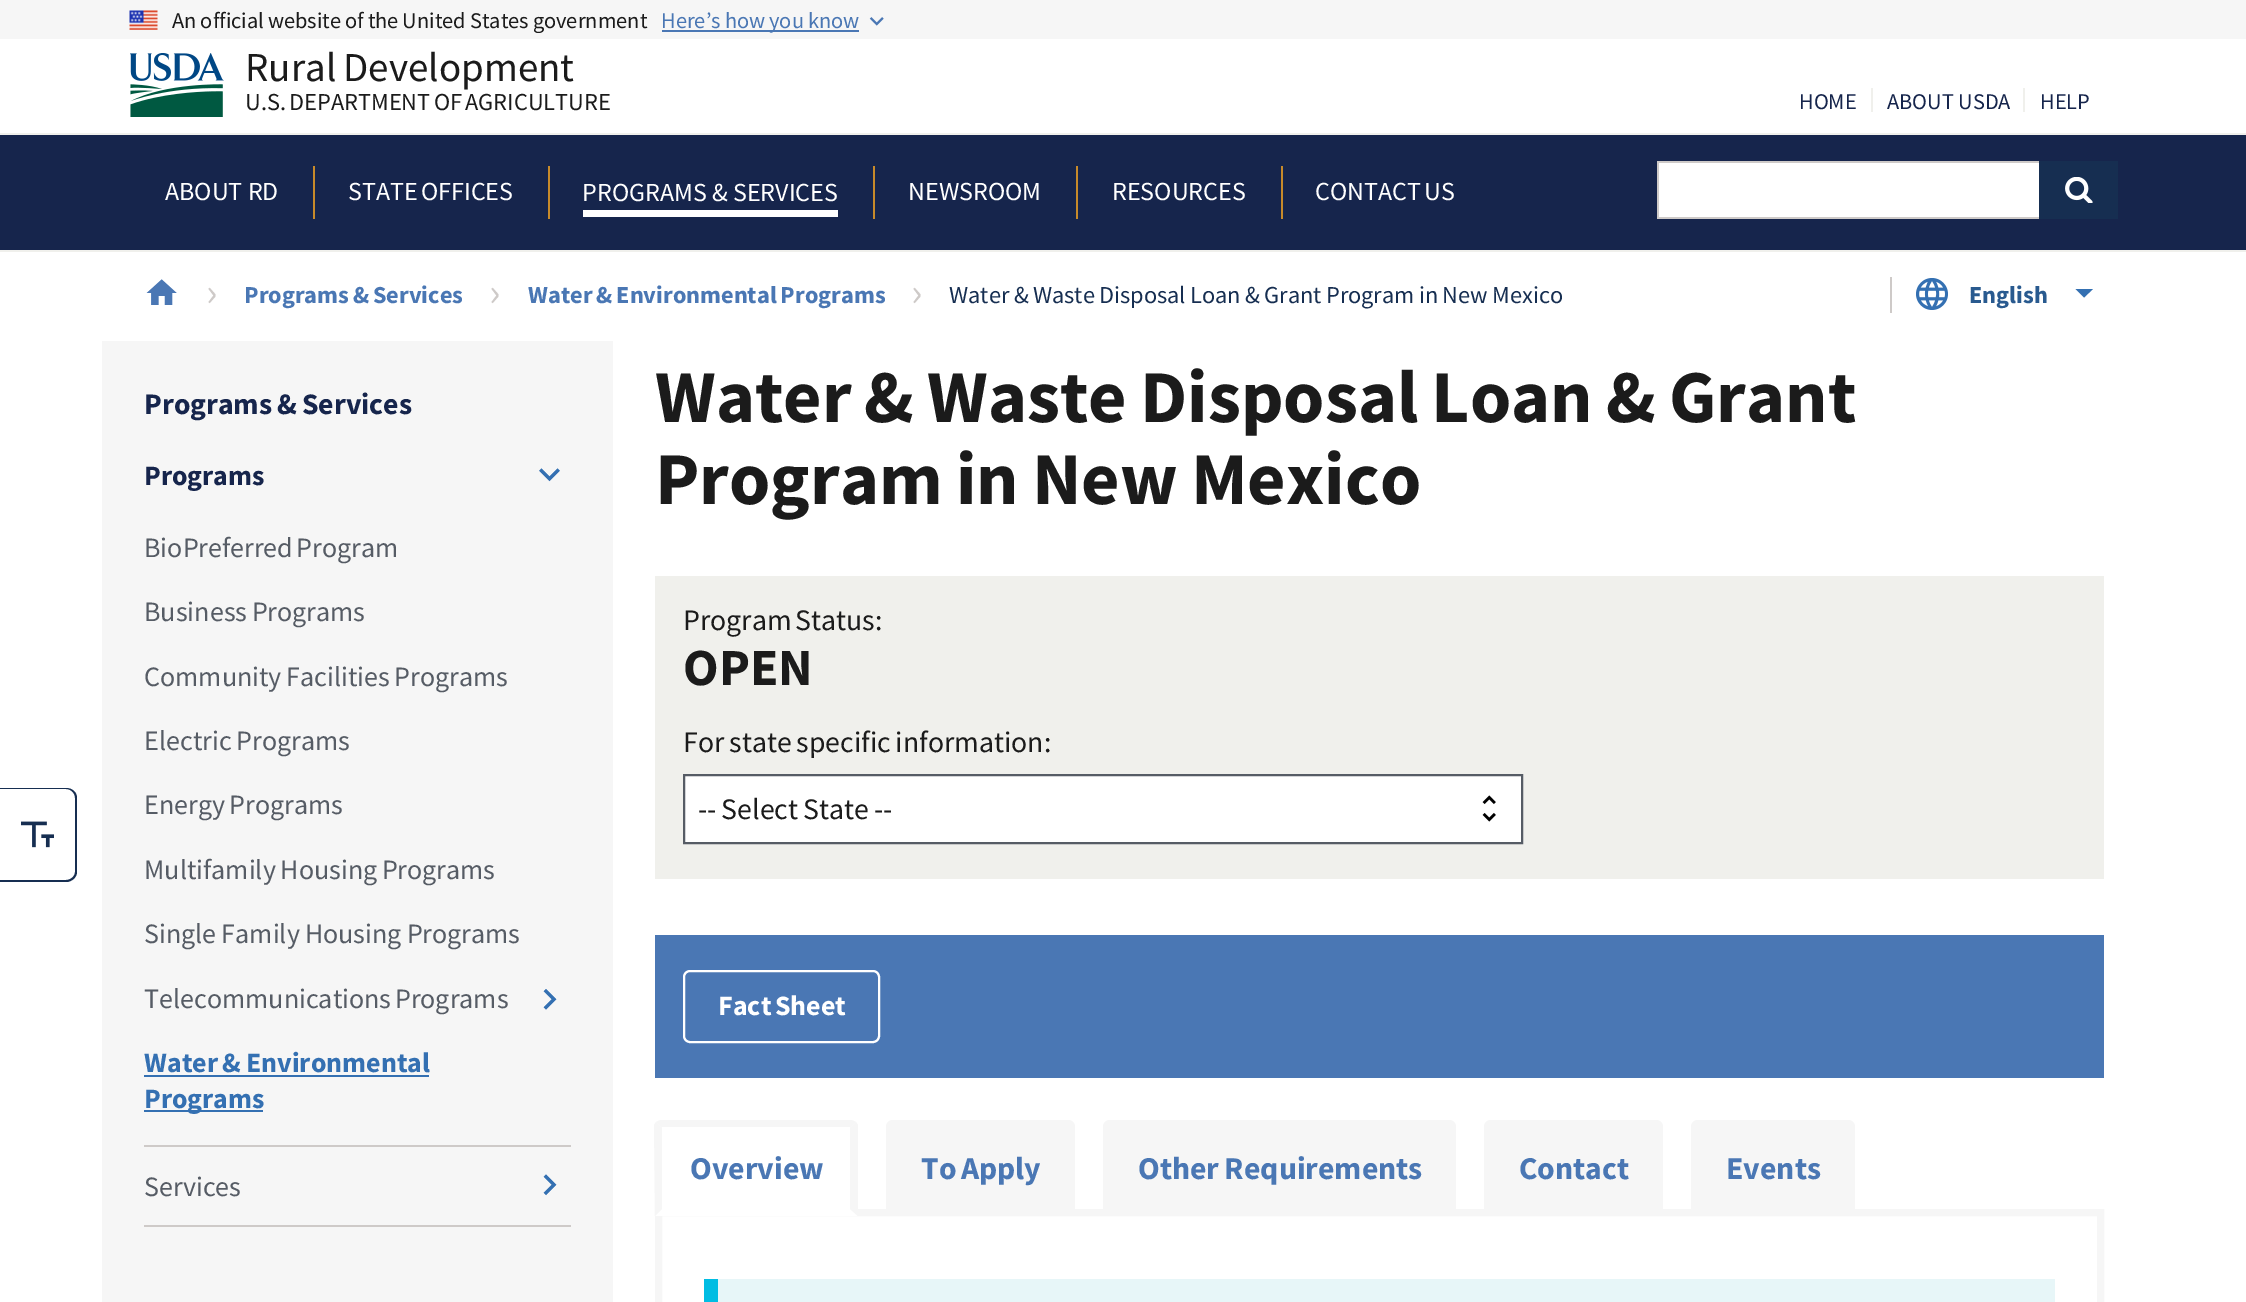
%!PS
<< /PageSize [2246 1302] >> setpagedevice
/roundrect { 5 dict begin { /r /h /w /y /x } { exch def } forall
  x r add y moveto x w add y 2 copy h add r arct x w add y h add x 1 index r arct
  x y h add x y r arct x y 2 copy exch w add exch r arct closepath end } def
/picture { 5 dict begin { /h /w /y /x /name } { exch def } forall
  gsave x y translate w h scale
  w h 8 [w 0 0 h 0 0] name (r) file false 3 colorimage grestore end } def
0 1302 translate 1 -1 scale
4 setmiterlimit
1 setgray
0 0 2246 1302 rectfill
0.965 setgray
0 0 2246 39 rectfill
(img1.rgb) 129 10 29 20 picture
/SourceSansPro-Regular [22.4 0 0 -22.4 0 0] selectfont
0.106 setgray
172 28 moveto -0.5 0 32 (An official website of the United States government) widthshow
0.29 0.467 0.706 setrgbcolor
662 30 197 2 rectfill
661 28 moveto -0.5 0 32 (Here’s how you know) widthshow
(img2.rgb) 869 17 15 9 picture
(img3.rgb) 130 53 94 64 picture
/SourceSansPro-Regular [41 0 0 -41 0 0] selectfont
0.106 setgray
245 81 moveto -1 0 32 (Rural Development) widthshow
/SourceSansPro-Regular [24.35 0 0 -24.35 0 0] selectfont
245 110 moveto -1.5 0 32 (U.S. DEPARTMENT OF AGRICULTURE) widthshow
0.086 0.18 0.318 setrgbcolor
newpath 0 788 moveto 66 788 lineto 72 788 77 792 77 798 curveto 77 872 lineto 77 877 72 882 66 882 curveto 0 882 lineto closepath 0 789 moveto 66 789 lineto 71 789 75 793 75 798 curveto 75 872 lineto 75 876 71 880 66 880 curveto 0 880 lineto closepath eofill
(img4.rgb) 21 821 33 27 picture
0.086 0.145 0.298 setrgbcolor
0 135 2246 115 rectfill
0.941 0.941 0.925 setrgbcolor
0 133 2246 2 rectfill
0 250 2246 2 rectfill
/SourceSansPro-Regular [22.4 0 0 -22.4 0 0] selectfont
0.086 0.145 0.298 setrgbcolor
1799 109 moveto (HOME) show
0.941 0.941 0.925 setrgbcolor
1871 88 2 24 rectfill
0.086 0.145 0.298 setrgbcolor
1887 109 moveto (ABOUT USDA) show
0.941 0.941 0.925 setrgbcolor
2023 88 2 24 rectfill
0.086 0.145 0.298 setrgbcolor
2040 109 moveto (HELP) show
/SourceSansPro-Regular [26 0 0 -26 0 0] selectfont
1 setgray
165 200 moveto (ABOUT RD) show
0.78 0.541 0.165 setrgbcolor
313 166 2 53 rectfill
1 setgray
348 200 moveto -2 0 32 (STATE OFFICES) widthshow
583 210 255 7 rectfill
0.78 0.541 0.165 setrgbcolor
548 166 2 53 rectfill
1 setgray
582 201 moveto (PROGRAMS & SERVICES) show
0.78 0.541 0.165 setrgbcolor
873 166 2 53 rectfill
1 setgray
908 200 moveto (NEWSROOM) show
0.78 0.541 0.165 setrgbcolor
1076 166 2 53 rectfill
1 setgray
1112 200 moveto (RESOURCES) show
0.78 0.541 0.165 setrgbcolor
1281 166 2 53 rectfill
1 setgray
1315 200 moveto -2 0 32 (CONTACT US) widthshow
1659 163 380 54 rectfill
0.808 0.792 0.784 setrgbcolor
1657 161 382 2 rectfill
1657 217 382 2 rectfill
1657 161 2 58 rectfill
0.086 0.18 0.318 setrgbcolor
2039 161 79 58 rectfill
(img5.rgb) 2065 177 28 26 picture
(img6.rgb) 146 279 31 26 picture
/SourceSansPro-Regular [42 0 0 -42 0 0] selectfont
0.808 0.792 0.784 setrgbcolor
206 306 moveto (›) show
/SourceSansPro-Bold [24.35 0 0 -24.35 0 0] selectfont
0.29 0.467 0.706 setrgbcolor
244 303 moveto -1 0 32 (Programs & Services) widthshow
/SourceSansPro-Regular [42 0 0 -42 0 0] selectfont
0.808 0.792 0.784 setrgbcolor
489 306 moveto (›) show
/SourceSansPro-Bold [24.35 0 0 -24.35 0 0] selectfont
0.29 0.467 0.706 setrgbcolor
528 303 moveto -1 0 32 (Water & Environmental Programs) widthshow
/SourceSansPro-Regular [42 0 0 -42 0 0] selectfont
0.808 0.792 0.784 setrgbcolor
911 306 moveto (›) show
/SourceSansPro-Regular [24.35 0 0 -24.35 0 0] selectfont
0.086 0.18 0.318 setrgbcolor
949 303 moveto -0.5 0 32 (Water & Waste Disposal Loan & Grant Program in New Mexico) widthshow
(img7.rgb) 1916 278 32 32 picture
0.808 0.792 0.784 setrgbcolor
1890 277 2 36 rectfill
/SourceSansPro-Bold [24.35 0 0 -24.35 0 0] selectfont
0.161 0.353 0.561 setrgbcolor
1969 303 moveto (English) show
0.204 0.439 0.698 setrgbcolor
newpath 2075.5 289 moveto 2093 289 lineto 2084 297.5 lineto closepath fill
0.965 setgray
102 341 511 961 rectfill
/SourceSansPro-Bold [29.75 0 0 -29.75 0 0] selectfont
0.086 0.145 0.298 setrgbcolor
144 414 moveto -1 0 32 (Programs & Services) widthshow
0.808 0.792 0.784 setrgbcolor
144 1145 427 2 rectfill
/SourceSansPro-Bold [28 0 0 -28 0 0] selectfont
0.086 0.145 0.298 setrgbcolor
144 485 moveto (Programs) show
(img8.rgb) 539 468 21 14 picture
/SourceSansPro-Regular [28 0 0 -28 0 0] selectfont
0.337 0.361 0.396 setrgbcolor
144 557 moveto -2 0 32 (BioPreferred Program) widthshow
144 621 moveto -1 0 32 (Business Programs) widthshow
144 686 moveto -1 0 32 (Community Facilities Programs) widthshow
144 750 moveto -1 0 32 (Electric Programs) widthshow
144 814 moveto -1 0 32 (Energy Programs) widthshow
144 879 moveto -1 0 32 (Multifamily Housing Programs) widthshow
144 943 moveto -0.5 0 32 (Single Family Housing Programs) widthshow
144 1008 moveto -2 0 32 (Telecommunications Programs) widthshow
(img9.rgb) 543 989 14 21 picture
/SourceSansPro-Bold [28 0 0 -28 0 0] selectfont
0.204 0.439 0.698 setrgbcolor
144 1072 moveto -1 0 32 (Water & Environmental) widthshow
144 1075 285 2 rectfill
144 1110 119 2 rectfill
144 1108 moveto (Programs) show
0.808 0.792 0.784 setrgbcolor
144 1225 427 2 rectfill
/SourceSansPro-Regular [28 0 0 -28 0 0] selectfont
0.337 0.361 0.396 setrgbcolor
144 1196 moveto (Services) show
(img10.rgb) 543 1174 14 22 picture
/SourceSansPro-Bold [74.5 0 0 -74.5 0 0] selectfont
0.106 setgray
655 422 moveto -2 0 32 (Water & Waste Disposal Loan & Grant) widthshow
655 504 moveto -2 0 32 (Program in New Mexico) widthshow
0.941 0.941 0.925 setrgbcolor
655 576 1449 303 rectfill
/SourceSansPro-Regular [29.75 0 0 -29.75 0 0] selectfont
0.106 setgray
683 630 moveto -2 0 32 (Program Status:) widthshow
/SourceSansPro-Bold [52 0 0 -52 0 0] selectfont
683 685 moveto (OPEN) show
/SourceSansPro-Regular [29.75 0 0 -29.75 0 0] selectfont
683 752 moveto -1 0 32 (For state specific information:) widthshow
1 setgray
685 776 836 66 rectfill
(img11.rgb) 1482 795 14 27 picture
0.337 0.361 0.396 setrgbcolor
2 setlinewidth
684 775 838 68 rectstroke
0.106 setgray
698 819 moveto -1 0 32 (-- Select State --) widthshow
0.29 0.467 0.706 setrgbcolor
655 935 1449 143 rectfill
1 setgray
684 971 195 71 6 roundrect stroke
/SourceSansPro-Bold [28 0 0 -28 0 0] selectfont
718 1015 moveto -2 0 32 (Fact Sheet) widthshow
0.965 setgray
newpath 893 1120 moveto 1068 1120 lineto 1072 1120 1075 1123 1075 1127 curveto 1075 1216 lineto 886 1216 lineto 886 1127 lineto 886 1123 889 1120 893 1120 curveto closepath fill
newpath 1110 1120 moveto 1449 1120 lineto 1453 1120 1456 1123 1456 1127 curveto 1456 1216 lineto 1103 1216 lineto 1103 1127 lineto 1103 1123 1106 1120 1110 1120 curveto closepath fill
newpath 1491 1120 moveto 1656 1120 lineto 1660 1120 1663 1123 1663 1127 curveto 1663 1216 lineto 1484 1216 lineto 1484 1127 lineto 1484 1123 1487 1120 1491 1120 curveto closepath fill
newpath 1698 1120 moveto 1848 1120 lineto 1852 1120 1855 1123 1855 1127 curveto 1855 1216 lineto 1691 1216 lineto 1691 1127 lineto 1691 1123 1694 1120 1698 1120 curveto closepath fill
7 setlinewidth
658.5 1212.5 1442 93 rectstroke
1 setgray
newpath 662 1120 moveto 851 1120 lineto 855 1120 858 1123 858 1127 curveto 858 1216 lineto 655 1216 lineto 655 1127 lineto 655 1123 658 1120 662 1120 curveto closepath fill
0.965 setgray
newpath 662 1120 moveto 660 1120 658 1121 656 1122 curveto 662 1128 lineto 662 1127 lineto 850 1127 lineto 850 1128 lineto 856 1122 lineto 854 1121 852 1120 850 1120 curveto closepath fill
newpath 858 1216 moveto 850 1209 lineto 850 1128 lineto 856 1122 lineto 858 1125 lineto closepath fill
newpath 654 1125 moveto 656 1122 lineto 662 1128 lineto 662 1209 lineto 655 1216 lineto closepath fill
/SourceSansPro-Bold [31.75 0 0 -31.75 0 0] selectfont
0.29 0.467 0.706 setrgbcolor
690 1179 moveto (Overview) show
921 1179 moveto -2 0 32 (To Apply) widthshow
1138 1179 moveto -1 0 32 (Other Requirements) widthshow
1519 1179 moveto (Contact) show
1726 1179 moveto (Events) show
0.906 0.965 0.973 setrgbcolor
718 1279 1337 23 rectfill
0 0.741 0.89 setrgbcolor
704 1279 14 23 rectfill
showpage
